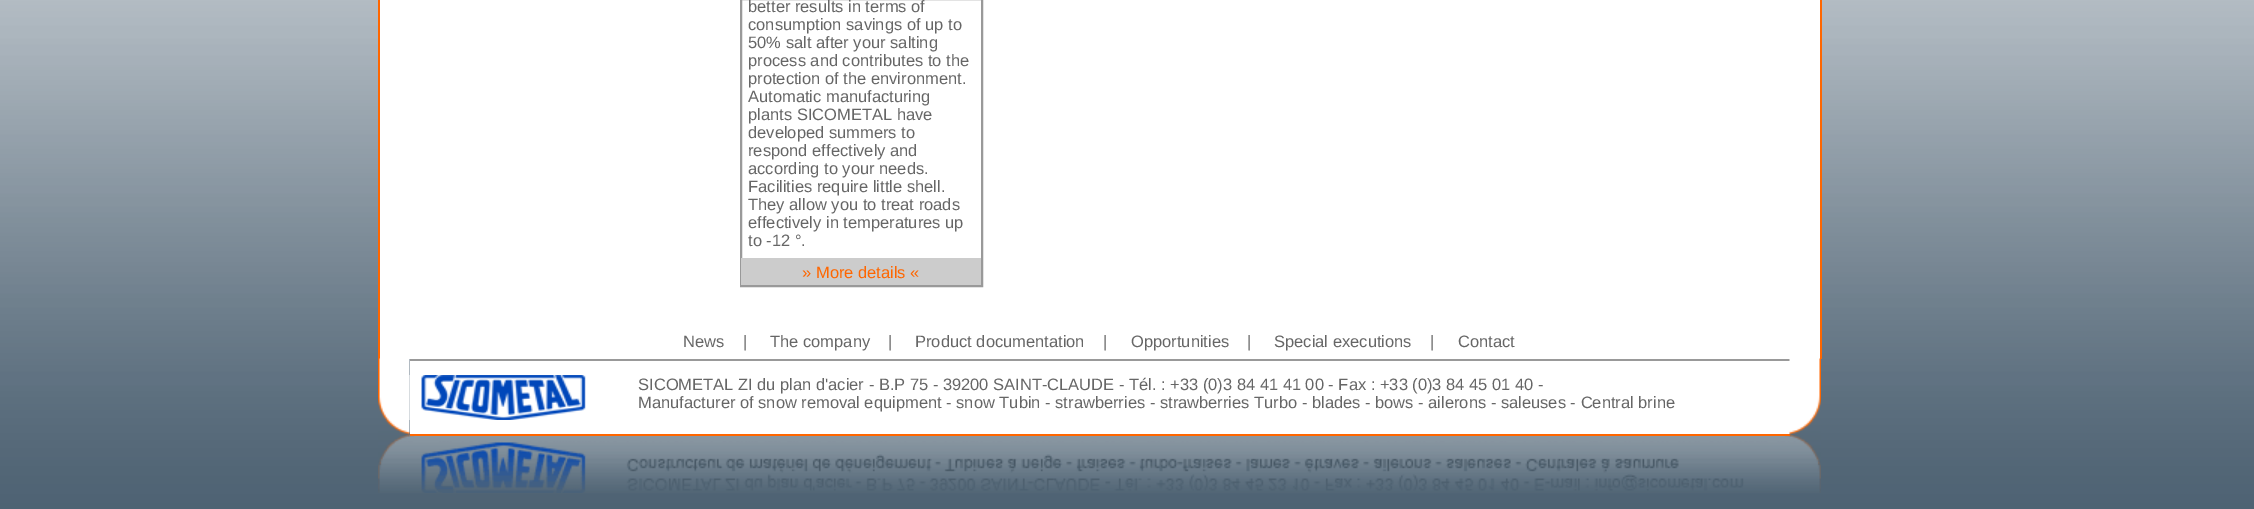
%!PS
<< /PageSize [2254 509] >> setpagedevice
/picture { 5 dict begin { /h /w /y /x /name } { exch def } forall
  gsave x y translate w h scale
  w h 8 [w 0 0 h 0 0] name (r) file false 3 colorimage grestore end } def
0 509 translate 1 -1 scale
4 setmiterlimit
1 setgray
0 0 2254 509 rectfill
(img1.rgb) 0 0 2254 509 picture
380 0 1440 359 rectfill
1 0.4 0 setrgbcolor
1820 0 2 359 rectfill
378 0 2 359 rectfill
0.6 setgray
2 setlinewidth
741 -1 241 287 rectstroke
/LiberationSans-Regular [16.5 0 0 -16.5 0 0] selectfont
0.4 setgray
748 12 moveto (better results in terms of) show
748 30 moveto (consumption savings of up to) show
748 48 moveto (50% salt after your salting) show
748 66 moveto (process and contributes to the) show
748 84 moveto (protection of the environment.) show
748 102 moveto (Automatic manufacturing) show
748 120 moveto (plants SICOMETAL have) show
748 138 moveto (developed summers to) show
748 156 moveto (respond effectively and) show
748 174 moveto (according to your needs.) show
748 192 moveto (Facilities require little shell.) show
748 210 moveto (They allow you to treat roads) show
748 228 moveto (effectively in temperatures up) show
748 246 moveto (to -12 °.) show
0.8 setgray
741 258 240 27 rectfill
1 0.4 0 setrgbcolor
802 278 moveto (» More details «) show
0.4 setgray
683 347 moveto (News) show
743 347 moveto (|) show
770 347 moveto (The company) show
888 347 moveto (|) show
915 347 moveto (Product documentation) show
1103 347 moveto (|) show
1131 347 moveto (Opportunities) show
1247 347 moveto (|) show
1274 347 moveto (Special executions) show
1430 347 moveto (|) show
1458 347 moveto (Contact) show
(img2.rgb) 378 358 32 77 picture
1 setgray
410 361 1380 73 rectfill
0.6 setgray
410 359 1380 2 rectfill
(img5.rgb) 378 435 1443 58 picture
1 0.4 0 setrgbcolor
410 434 1380 2 rectfill
(img3.rgb) 409 375 177 45 picture
0.4 setgray
638 390 moveto (SICOMETAL ZI du plan d'acier - B.P 75 - 39200 SAINT-CLAUDE - Tél. : +33 \(0\)3 84 41 41 00 - Fax : +33 \(0\)3 84 45 01 40 -) show
638 408 moveto (Manufacturer of snow removal equipment - snow Tubin - strawberries - strawberries Turbo - blades - bows - ailerons - saleuses - Central brine) show
(img4.rgb) 1789 358 32 77 picture
showpage
